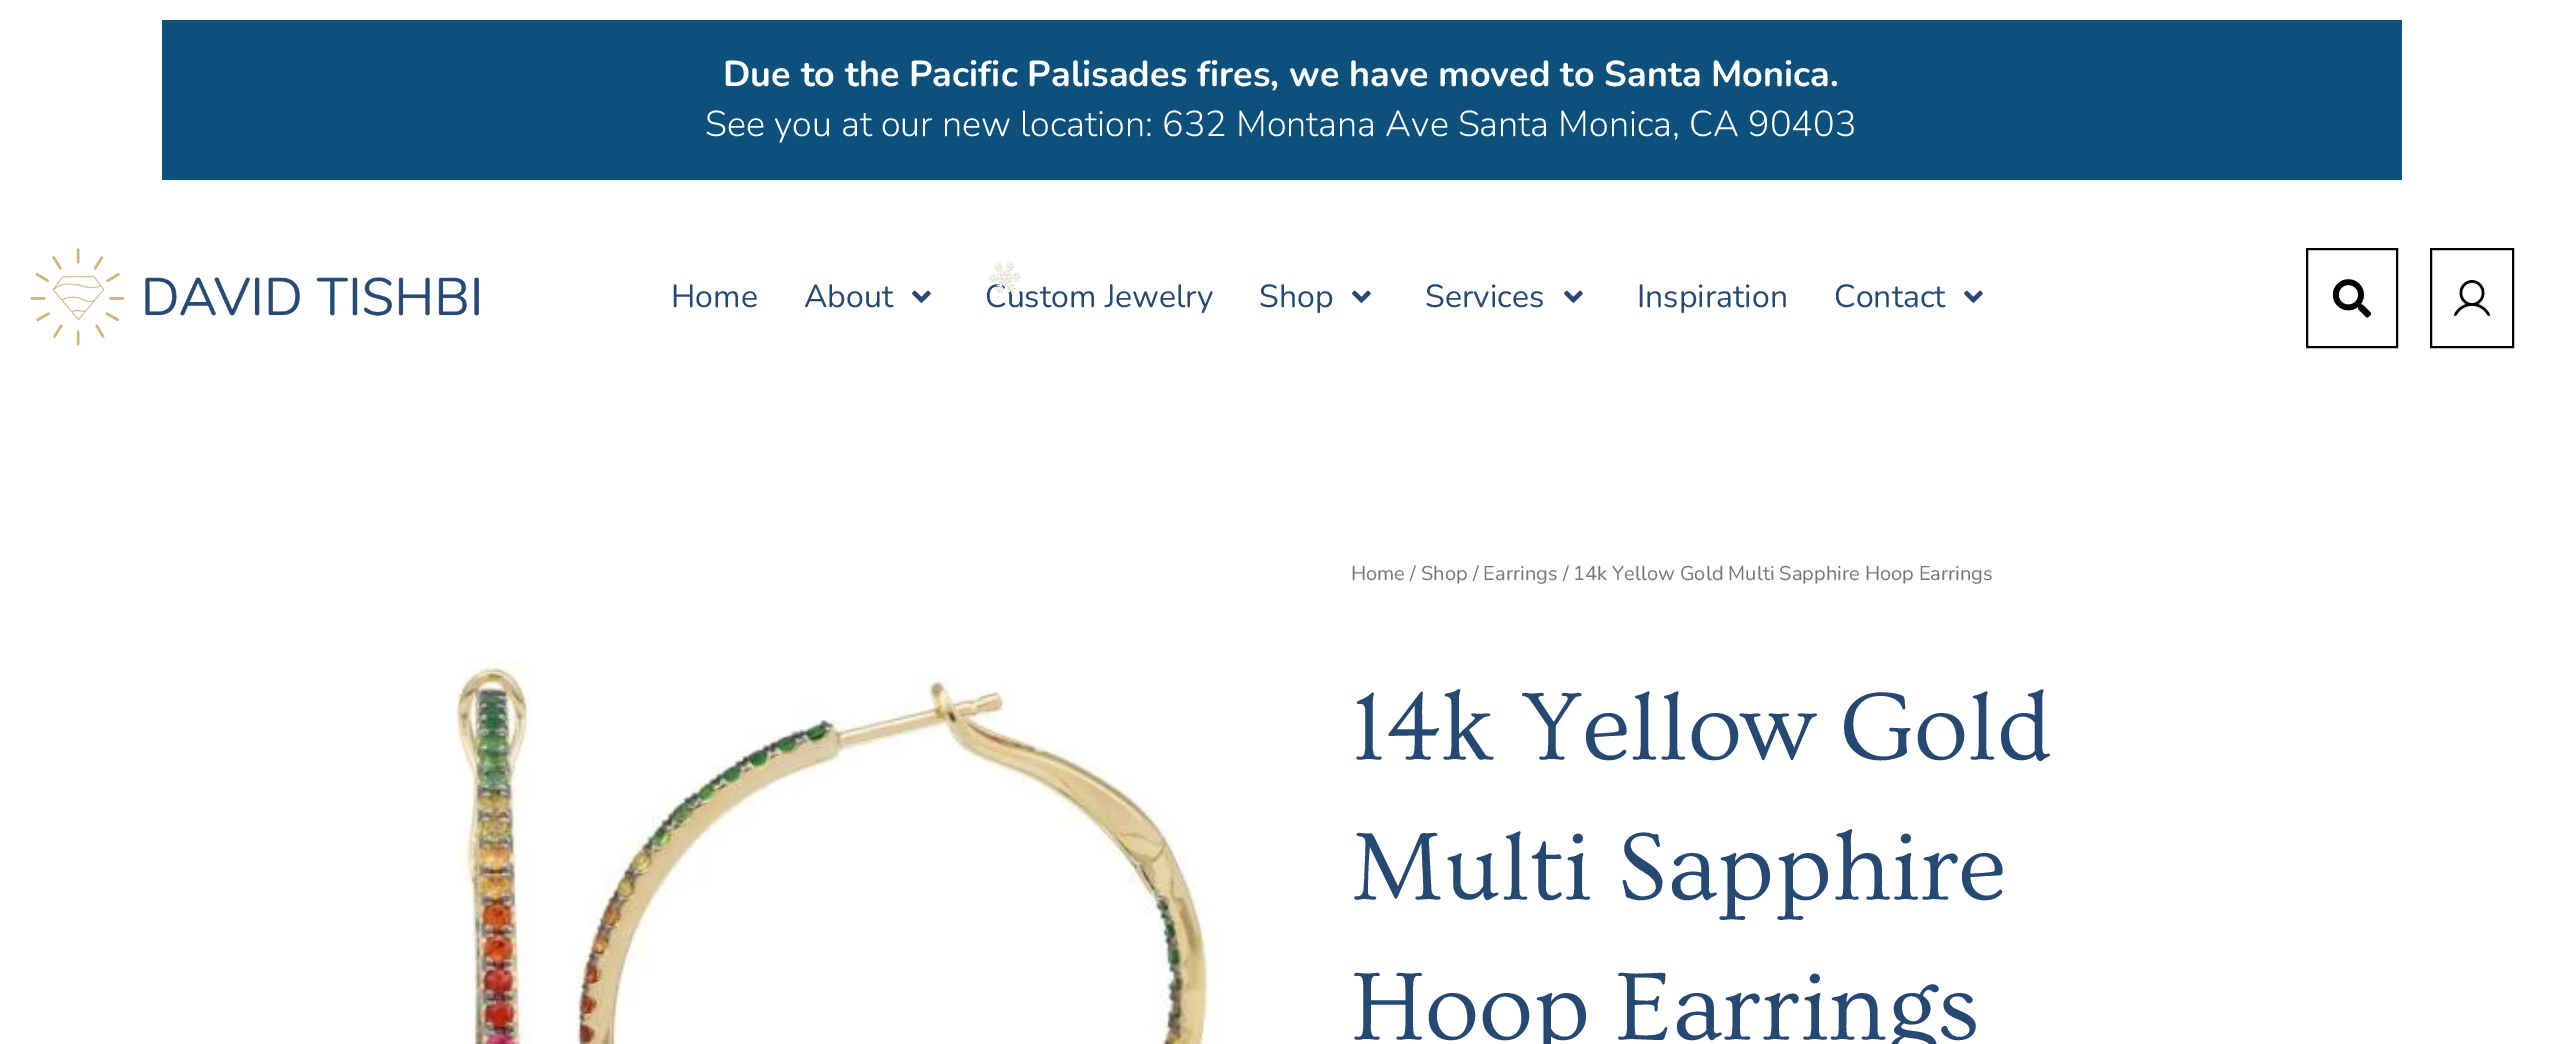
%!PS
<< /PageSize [2561 1044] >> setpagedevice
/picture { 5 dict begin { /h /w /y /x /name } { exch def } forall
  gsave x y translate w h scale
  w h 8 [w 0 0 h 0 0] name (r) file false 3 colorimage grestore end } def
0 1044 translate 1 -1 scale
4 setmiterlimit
1 setgray
0 0 2561 1044 rectfill
0.047 0.314 0.482 setrgbcolor
162 20 2240 160 rectfill
/Nunito-Bold [36 0 0 -36 0 0] selectfont
1 setgray
723 86 moveto (Due to the Pacific Palisades fires, we have moved to Santa Monica.) show
/Nunito-Light [36 0 0 -36 0 0] selectfont
705 136 moveto (See you at our new location: 632 Montana Ave Santa Monica, CA 90403) show
(img1.rgb) 30 248 450 98 picture
/Nunito-Regular [32 0 0 -32 0 0] selectfont
0.145 0.286 0.451 setrgbcolor
671 307 moveto (Home) show
804 307 moveto (About) show
(img2.rgb) 912 290 19 13 picture
985 307 moveto (Custom Jewelry) show
1259 307 moveto (Shop) show
(img2.rgb) 1352 290 19 13 picture
1425 307 moveto (Services) show
(img2.rgb) 1564 290 19 13 picture
1637 307 moveto (Inspiration) show
1834 307 moveto (Contact) show
(img2.rgb) 1964 290 19 13 picture
0 setgray
2 setlinewidth
2307 249 90 98 rectstroke
(img3.rgb) 2332 279 40 39 picture
2431 249 82 98 rectstroke
(img4.rgb) 2454 280 36 36 picture
(img5.rgb) 455 660 764 384 picture
/Nunito-Regular [20 0 0 -20 0 0] selectfont
0.467 setgray
1351 580 moveto (Home / Shop / Earrings / 14k Yellow Gold Multi Sapphire Hoop Earrings) show
/Ovo-Regular [100 0 0 -100 0 0] selectfont
0.145 0.286 0.451 setrgbcolor
1351 759 moveto (14k Yellow Gold) show
1351 899 moveto (Multi Sapphire) show
1351 1039 moveto (Hoop Earrings) show
(img6.rgb) 988 261 34 33 picture
showpage
